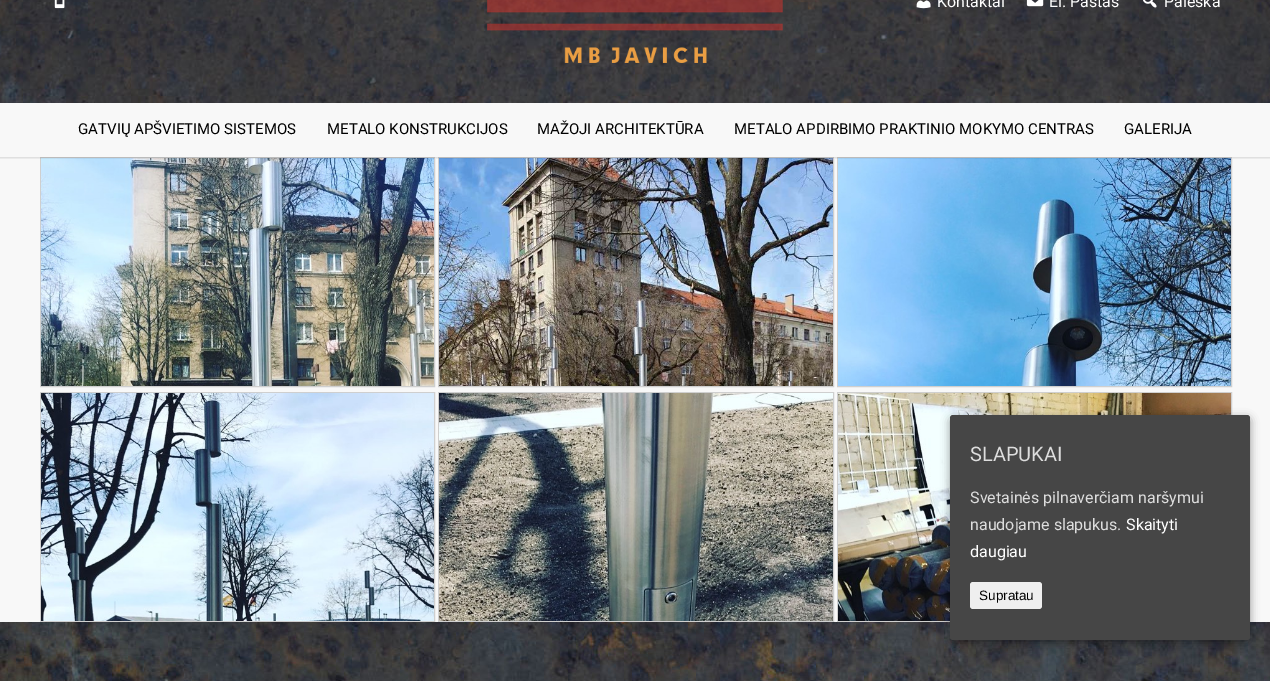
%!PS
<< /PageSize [1270 681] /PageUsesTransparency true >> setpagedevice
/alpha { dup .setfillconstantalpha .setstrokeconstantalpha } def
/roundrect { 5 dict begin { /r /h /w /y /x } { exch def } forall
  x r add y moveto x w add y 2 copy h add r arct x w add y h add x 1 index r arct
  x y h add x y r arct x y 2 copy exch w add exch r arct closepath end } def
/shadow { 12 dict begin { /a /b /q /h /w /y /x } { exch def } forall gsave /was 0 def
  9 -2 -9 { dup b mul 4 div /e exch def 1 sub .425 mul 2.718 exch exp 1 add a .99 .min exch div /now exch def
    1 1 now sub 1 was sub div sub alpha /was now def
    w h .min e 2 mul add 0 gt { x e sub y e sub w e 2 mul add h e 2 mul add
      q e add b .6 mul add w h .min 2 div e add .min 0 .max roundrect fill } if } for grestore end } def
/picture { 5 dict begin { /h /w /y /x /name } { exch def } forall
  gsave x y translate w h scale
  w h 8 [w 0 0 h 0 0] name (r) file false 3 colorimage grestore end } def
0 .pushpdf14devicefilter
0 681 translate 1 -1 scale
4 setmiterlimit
0.973 setgray
0 0 1270 681 rectfill
(img1.rgb) 0 0 1270 103 picture
(img2.rgb) 54 0 11 9 picture
(img3.rgb) 487 0 296 63 picture
(img4.rgb) 916 0 15 9 picture
/Roboto-Regular [16 0 0 -16 0 0] selectfont
1 setgray
937 7 moveto (Kontaktai) show
(img5.rgb) 1026 0 18 7 picture
1049 7 moveto (El. Paštas) show
(img6.rgb) 1143 0 14 8 picture
1164 7 moveto (Paieška) show
/Roboto-Regular [15 0 0 -15 0 0] selectfont
0 setgray
78 134 moveto (GATVIŲ APŠVIETIMO SISTEMOS) show
327 134 moveto (METALO KONSTRUKCIJOS) show
537 134 moveto (MAŽOJI ARCHITEKTŪRA) show
734 134 moveto (METALO APDIRBIMO PRAKTINIO MOKYMO CENTRAS) show
1124 134 moveto (GALERIJA) show
0.812 setgray
40.5 157.5 394 229 rectstroke
(img8.rgb) 41 158 393 228 picture
438.5 157.5 395 229 rectstroke
(img9.rgb) 439 158 394 228 picture
837.5 157.5 394 229 rectstroke
(img10.rgb) 838 158 393 228 picture
(img7.rgb) 0 157 1270 2 picture
40.5 392.5 394 229 rectstroke
(img11.rgb) 41 393 393 228 picture
438.5 392.5 395 229 rectstroke
(img12.rgb) 439 393 394 228 picture
837.5 392.5 394 229 rectstroke
(img13.rgb) 838 393 393 228 picture
(img14.rgb) 0 622 1270 59 picture
0 setgray
950 418 300 225 3 4.5 0.4 shadow
0.275 setgray
950 415 300 225 3 roundrect fill
/Roboto-Regular [20 0 0 -20 0 0] selectfont
0.867 setgray
970 461 moveto (SLAPUKAI) show
/Roboto-Regular [16 0 0 -16 0 0] selectfont
970 503 moveto (Svetainės pilnaverčiam naršymui) show
970 530 moveto (naudojame slapukus.) show
1 setgray
1126 530 moveto (Skaityti) show
970 557 moveto (daugiau) show
0.937 setgray
970 582 72 27 3 roundrect fill
/LiberationSans-Regular [13.5 0 0 -13.5 0 0] selectfont
0 setgray
979 600 moveto (Supratau) show
.poppdf14devicefilter showpage
